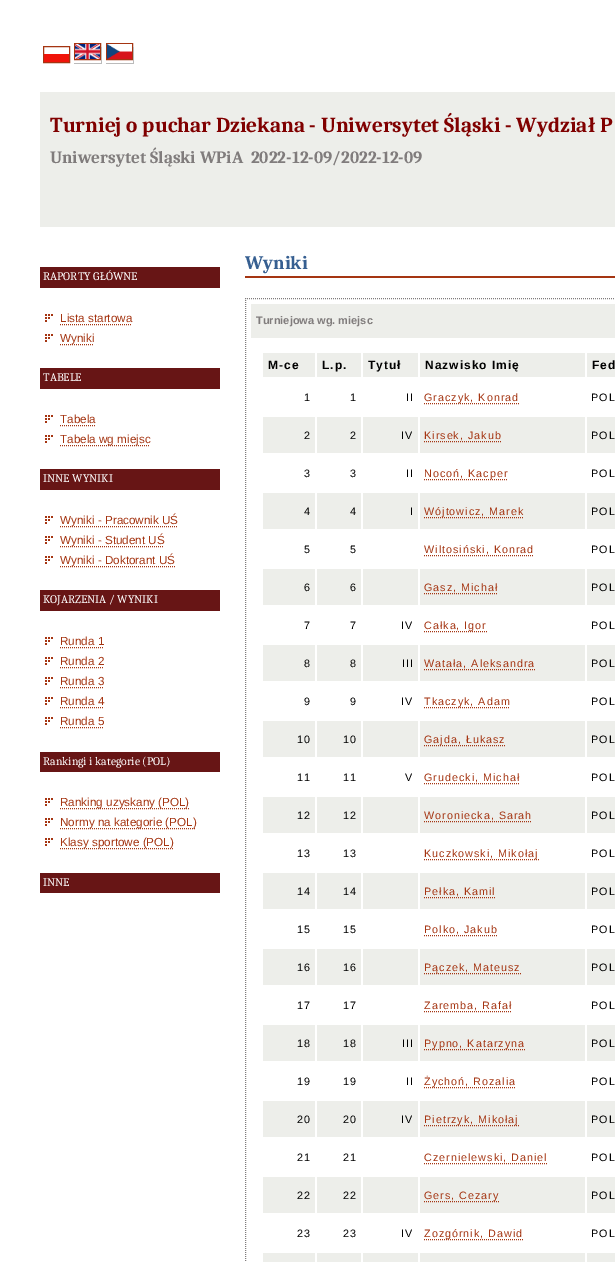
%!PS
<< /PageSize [615 1262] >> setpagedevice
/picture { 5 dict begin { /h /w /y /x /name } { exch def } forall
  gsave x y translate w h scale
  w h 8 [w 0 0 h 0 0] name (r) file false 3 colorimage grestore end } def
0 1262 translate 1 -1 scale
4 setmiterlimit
1 setgray
0 0 615 1262 rectfill
0.647 0.208 0.071 setrgbcolor
43.5 46.5 26 16 rectstroke
0.941 0.078 0.039 setrgbcolor
44 54 25 8 rectfill
0.647 0.208 0.071 setrgbcolor
74.5 43.5 26 16 rectstroke
(img1.rgb) 75 44 25 15 picture
0.733 setgray
101 47 1 17 rectfill
74 63 28 1 rectfill
0.647 0.208 0.071 setrgbcolor
106.5 43.5 26 16 rectstroke
(img2.rgb) 107 44 25 15 picture
0.733 setgray
133 47 1 17 rectfill
106 63 28 1 rectfill
0.929 0.933 0.918 setrgbcolor
40 92 575 135 rectfill
/Caladea-Bold [21.3 0 0 -21.3 0 0] selectfont
0.502 0 0 setrgbcolor
50 132 moveto (Turniej o puchar Dziekana - Uniwersytet Śląski - Wydział P) show
/Caladea-Bold [17.3 0 0 -17.3 0 0] selectfont
0.502 0.486 0.486 setrgbcolor
50 163 moveto (Uniwersytet Śląski WPiA  2022-12-09/2022-12-09) show
0.404 0.082 0.082 setrgbcolor
40 267 180 21 rectfill
/Caladea-Regular [11.7 0 0 -11.7 0 0] selectfont
1 setgray
43 280 moveto (RAPORTY GŁÓWNE) show
(img3.rgb) 45 314 8 8 picture
/LiberationSans-Regular [11.7 0 0 -11.7 0 0] selectfont
0.647 0.208 0.071 setrgbcolor
60 322 moveto (Lista startowa) show
[1 1] 0 setdash
newpath 60 324.5 moveto 132 324.5 lineto stroke
(img3.rgb) 45 334 8 8 picture
newpath 60 344.5 moveto 94 344.5 lineto stroke
60 342 moveto (Wyniki) show
0.404 0.082 0.082 setrgbcolor
40 368 180 21 rectfill
/Caladea-Regular [11.7 0 0 -11.7 0 0] selectfont
1 setgray
43 381 moveto (TABELE) show
(img3.rgb) 45 415 8 8 picture
/LiberationSans-Regular [11.7 0 0 -11.7 0 0] selectfont
0.647 0.208 0.071 setrgbcolor
60 423 moveto (Tabela) show
newpath 60 425.5 moveto 96 425.5 lineto stroke
(img3.rgb) 45 435 8 8 picture
newpath 60 445.5 moveto 150 445.5 lineto stroke
60 443 moveto (Tabela wg miejsc) show
0.404 0.082 0.082 setrgbcolor
40 469 180 21 rectfill
/Caladea-Regular [11.7 0 0 -11.7 0 0] selectfont
1 setgray
43 482 moveto (INNE WYNIKI) show
(img3.rgb) 45 516 8 8 picture
0.647 0.208 0.071 setrgbcolor
newpath 60 526.5 moveto 178 526.5 lineto stroke
/LiberationSans-Regular [11.7 0 0 -11.7 0 0] selectfont
60 524 moveto (Wyniki - Pracownik UŚ) show
(img3.rgb) 45 536 8 8 picture
newpath 60 546.5 moveto 164 546.5 lineto stroke
60 544 moveto (Wyniki - Student UŚ) show
(img3.rgb) 45 556 8 8 picture
newpath 60 566.5 moveto 175 566.5 lineto stroke
60 564 moveto (Wyniki - Doktorant UŚ) show
0.404 0.082 0.082 setrgbcolor
40 590 180 21 rectfill
/Caladea-Regular [11.7 0 0 -11.7 0 0] selectfont
1 setgray
43 603 moveto (KOJARZENIA / WYNIKI) show
(img3.rgb) 45 637 8 8 picture
/LiberationSans-Regular [11.7 0 0 -11.7 0 0] selectfont
0.647 0.208 0.071 setrgbcolor
60 645 moveto (Runda 1) show
newpath 60 647.5 moveto 104 647.5 lineto stroke
(img3.rgb) 45 657 8 8 picture
60 665 moveto (Runda 2) show
newpath 60 667.5 moveto 104 667.5 lineto stroke
(img3.rgb) 45 677 8 8 picture
60 685 moveto (Runda 3) show
newpath 60 687.5 moveto 104 687.5 lineto stroke
(img3.rgb) 45 697 8 8 picture
60 705 moveto (Runda 4) show
newpath 60 707.5 moveto 104 707.5 lineto stroke
(img3.rgb) 45 717 8 8 picture
60 725 moveto (Runda 5) show
newpath 60 727.5 moveto 104 727.5 lineto stroke
0.404 0.082 0.082 setrgbcolor
40 752 180 20 rectfill
/Caladea-Regular [11.7 0 0 -11.7 0 0] selectfont
1 setgray
43 765 moveto (Rankingi i kategorie \(POL\)) show
(img3.rgb) 45 798 8 8 picture
0.647 0.208 0.071 setrgbcolor
newpath 60 808.5 moveto 189 808.5 lineto stroke
/LiberationSans-Regular [11.7 0 0 -11.7 0 0] selectfont
60 806 moveto (Ranking uzyskany \(POL\)) show
(img3.rgb) 45 818 8 8 picture
newpath 60 828.5 moveto 196 828.5 lineto stroke
60 826 moveto (Normy na kategorie \(POL\)) show
(img3.rgb) 45 838 8 8 picture
newpath 60 848.5 moveto 173 848.5 lineto stroke
60 846 moveto (Klasy sportowe \(POL\)) show
0.404 0.082 0.082 setrgbcolor
40 873 180 20 rectfill
/Caladea-Regular [11.7 0 0 -11.7 0 0] selectfont
1 setgray
43 886 moveto (INNE) show
0.647 0.208 0.071 setrgbcolor
245 276 370 2 rectfill
/Caladea-Bold [19 0 0 -19 0 0] selectfont
0.212 0.373 0.569 setrgbcolor
245 269 moveto (Wyniki) show
0.502 0.486 0.486 setrgbcolor
newpath 245 298.5 moveto 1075 298.5 lineto stroke
newpath 245.5 298 moveto 245.5 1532 lineto stroke
0.929 0.933 0.918 setrgbcolor
251 304 364 34 rectfill
/LiberationSans-Bold [11 0 0 -11 0 0] selectfont
0.502 0.486 0.486 setrgbcolor
256 324 moveto (Turniejowa wg. miejsc) show
0.929 0.933 0.918 setrgbcolor
263 353 52 24 rectfill
/LiberationSans-Bold [12 0 0 -12 0 0] selectfont
0 setgray
268 369 moveto 1 0 (M-ce) ashow
0.929 0.933 0.918 setrgbcolor
317 353 44 24 rectfill
0 setgray
322 369 moveto 1 0 (L.p.) ashow
0.929 0.933 0.918 setrgbcolor
363 353 55 24 rectfill
0 setgray
368 369 moveto 1 0 (Tytuł) ashow
0.929 0.933 0.918 setrgbcolor
420 353 165 24 rectfill
0 setgray
425 369 moveto 1 0 (Nazwisko Imię) ashow
0.929 0.933 0.918 setrgbcolor
587 353 28 24 rectfill
0 setgray
592 369 moveto 1 0 (Fed) ashow
/LiberationSans-Regular [10.75 0 0 -10.75 0 0] selectfont
304 401 moveto 1 0 (1) ashow
350 401 moveto 1 0 (1) ashow
406 401 moveto 1 0 (II) ashow
0.647 0.208 0.071 setrgbcolor
newpath 424 403.5 moveto 519 403.5 lineto stroke
424 401 moveto 1 0 (Graczyk, Konrad) ashow
0 setgray
591 401 moveto 1 0 (POL) ashow
0.929 0.933 0.918 setrgbcolor
263 417 52 36 rectfill
0 setgray
304 439 moveto 1 0 (2) ashow
0.929 0.933 0.918 setrgbcolor
317 417 44 36 rectfill
0 setgray
350 439 moveto 1 0 (2) ashow
0.929 0.933 0.918 setrgbcolor
363 417 55 36 rectfill
0 setgray
401 439 moveto 1 0 (IV) ashow
0.929 0.933 0.918 setrgbcolor
420 417 165 36 rectfill
0.647 0.208 0.071 setrgbcolor
424 439 moveto 1 0 (Kirsek, Jakub) ashow
newpath 424 441.5 moveto 501 441.5 lineto stroke
0.929 0.933 0.918 setrgbcolor
587 417 28 36 rectfill
0 setgray
591 439 moveto 1 0 (POL) ashow
304 477 moveto 1 0 (3) ashow
350 477 moveto 1 0 (3) ashow
406 477 moveto 1 0 (II) ashow
0.647 0.208 0.071 setrgbcolor
newpath 424 479.5 moveto 508 479.5 lineto stroke
424 477 moveto 1 0 (Nocoń, Kacper) ashow
0 setgray
591 477 moveto 1 0 (POL) ashow
0.929 0.933 0.918 setrgbcolor
263 493 52 36 rectfill
0 setgray
304 515 moveto 1 0 (4) ashow
0.929 0.933 0.918 setrgbcolor
317 493 44 36 rectfill
0 setgray
350 515 moveto 1 0 (4) ashow
0.929 0.933 0.918 setrgbcolor
363 493 55 36 rectfill
0 setgray
410 515 moveto 1 0 (I) ashow
0.929 0.933 0.918 setrgbcolor
420 493 165 36 rectfill
0.647 0.208 0.071 setrgbcolor
newpath 424 517.5 moveto 524 517.5 lineto stroke
424 515 moveto 1 0 (Wójtowicz, Marek) ashow
0.929 0.933 0.918 setrgbcolor
587 493 28 36 rectfill
0 setgray
591 515 moveto 1 0 (POL) ashow
304 553 moveto 1 0 (5) ashow
350 553 moveto 1 0 (5) ashow
0.647 0.208 0.071 setrgbcolor
424 553 moveto 1 0 (Wiltosiński, Konrad) ashow
newpath 424 555.5 moveto 534 555.5 lineto stroke
0 setgray
591 553 moveto 1 0 (POL) ashow
0.929 0.933 0.918 setrgbcolor
263 569 52 36 rectfill
0 setgray
304 591 moveto 1 0 (6) ashow
0.929 0.933 0.918 setrgbcolor
317 569 44 36 rectfill
0 setgray
350 591 moveto 1 0 (6) ashow
0.929 0.933 0.918 setrgbcolor
363 569 55 36 rectfill
420 569 165 36 rectfill
0.647 0.208 0.071 setrgbcolor
424 591 moveto 1 0 (Gasz, Michał) ashow
newpath 424 593.5 moveto 498 593.5 lineto stroke
0.929 0.933 0.918 setrgbcolor
587 569 28 36 rectfill
0 setgray
591 591 moveto 1 0 (POL) ashow
304 629 moveto 1 0 (7) ashow
350 629 moveto 1 0 (7) ashow
401 629 moveto 1 0 (IV) ashow
0.647 0.208 0.071 setrgbcolor
newpath 424 631.5 moveto 487 631.5 lineto stroke
424 629 moveto 1 0 (Całka, Igor) ashow
0 setgray
591 629 moveto 1 0 (POL) ashow
0.929 0.933 0.918 setrgbcolor
263 645 52 36 rectfill
0 setgray
304 667 moveto 1 0 (8) ashow
0.929 0.933 0.918 setrgbcolor
317 645 44 36 rectfill
0 setgray
350 667 moveto 1 0 (8) ashow
0.929 0.933 0.918 setrgbcolor
363 645 55 36 rectfill
0 setgray
402 667 moveto 1 0 (III) ashow
0.929 0.933 0.918 setrgbcolor
420 645 165 36 rectfill
0.647 0.208 0.071 setrgbcolor
424 667 moveto 1 0 (Watała, Aleksandra) ashow
newpath 424 669.5 moveto 535 669.5 lineto stroke
0.929 0.933 0.918 setrgbcolor
587 645 28 36 rectfill
0 setgray
591 667 moveto 1 0 (POL) ashow
304 705 moveto 1 0 (9) ashow
350 705 moveto 1 0 (9) ashow
401 705 moveto 1 0 (IV) ashow
0.647 0.208 0.071 setrgbcolor
newpath 424 707.5 moveto 510 707.5 lineto stroke
424 705 moveto 1 0 (Tkaczyk, Adam) ashow
0 setgray
591 705 moveto 1 0 (POL) ashow
0.929 0.933 0.918 setrgbcolor
263 721 52 36 rectfill
0 setgray
297 743 moveto 1 0 (10) ashow
0.929 0.933 0.918 setrgbcolor
317 721 44 36 rectfill
0 setgray
343 743 moveto 1 0 (10) ashow
0.929 0.933 0.918 setrgbcolor
363 721 55 36 rectfill
420 721 165 36 rectfill
0.647 0.208 0.071 setrgbcolor
newpath 424 745.5 moveto 506 745.5 lineto stroke
424 743 moveto 1 0 (Gajda, Łukasz) ashow
0.929 0.933 0.918 setrgbcolor
587 721 28 36 rectfill
0 setgray
591 743 moveto 1 0 (POL) ashow
297 781 moveto 1 0 (11) ashow
343 781 moveto 1 0 (11) ashow
405 781 moveto 1 0 (V) ashow
0.647 0.208 0.071 setrgbcolor
424 781 moveto 1 0 (Grudecki, Michał) ashow
newpath 424 783.5 moveto 520 783.5 lineto stroke
0 setgray
591 781 moveto 1 0 (POL) ashow
0.929 0.933 0.918 setrgbcolor
263 797 52 36 rectfill
0 setgray
297 819 moveto 1 0 (12) ashow
0.929 0.933 0.918 setrgbcolor
317 797 44 36 rectfill
0 setgray
343 819 moveto 1 0 (12) ashow
0.929 0.933 0.918 setrgbcolor
363 797 55 36 rectfill
420 797 165 36 rectfill
0.647 0.208 0.071 setrgbcolor
424 819 moveto 1 0 (Woroniecka, Sarah) ashow
newpath 424 821.5 moveto 532 821.5 lineto stroke
0.929 0.933 0.918 setrgbcolor
587 797 28 36 rectfill
0 setgray
591 819 moveto 1 0 (POL) ashow
297 857 moveto 1 0 (13) ashow
343 857 moveto 1 0 (13) ashow
0.647 0.208 0.071 setrgbcolor
newpath 424 859.5 moveto 539 859.5 lineto stroke
424 857 moveto 1 0 (Kuczkowski, Mikołaj) ashow
0 setgray
591 857 moveto 1 0 (POL) ashow
0.929 0.933 0.918 setrgbcolor
263 873 52 36 rectfill
0 setgray
297 895 moveto 1 0 (14) ashow
0.929 0.933 0.918 setrgbcolor
317 873 44 36 rectfill
0 setgray
343 895 moveto 1 0 (14) ashow
0.929 0.933 0.918 setrgbcolor
363 873 55 36 rectfill
420 873 165 36 rectfill
0.647 0.208 0.071 setrgbcolor
424 895 moveto 1 0 (Pełka, Kamil) ashow
newpath 424 897.5 moveto 496 897.5 lineto stroke
0.929 0.933 0.918 setrgbcolor
587 873 28 36 rectfill
0 setgray
591 895 moveto 1 0 (POL) ashow
297 933 moveto 1 0 (15) ashow
343 933 moveto 1 0 (15) ashow
0.647 0.208 0.071 setrgbcolor
424 933 moveto 1 0 (Polko, Jakub) ashow
newpath 424 935.5 moveto 497 935.5 lineto stroke
0 setgray
591 933 moveto 1 0 (POL) ashow
0.929 0.933 0.918 setrgbcolor
263 949 52 36 rectfill
0 setgray
297 971 moveto 1 0 (16) ashow
0.929 0.933 0.918 setrgbcolor
317 949 44 36 rectfill
0 setgray
343 971 moveto 1 0 (16) ashow
0.929 0.933 0.918 setrgbcolor
363 949 55 36 rectfill
420 949 165 36 rectfill
0.647 0.208 0.071 setrgbcolor
newpath 424 973.5 moveto 521 973.5 lineto stroke
424 971 moveto 1 0 (Pączek, Mateusz) ashow
0.929 0.933 0.918 setrgbcolor
587 949 28 36 rectfill
0 setgray
591 971 moveto 1 0 (POL) ashow
297 1009 moveto 1 0 (17) ashow
343 1009 moveto 1 0 (17) ashow
0.647 0.208 0.071 setrgbcolor
424 1009 moveto 1 0 (Zaremba, Rafał) ashow
newpath 424 1011.5 moveto 512 1011.5 lineto stroke
0 setgray
591 1009 moveto 1 0 (POL) ashow
0.929 0.933 0.918 setrgbcolor
263 1025 52 36 rectfill
0 setgray
297 1047 moveto 1 0 (18) ashow
0.929 0.933 0.918 setrgbcolor
317 1025 44 36 rectfill
0 setgray
343 1047 moveto 1 0 (18) ashow
0.929 0.933 0.918 setrgbcolor
363 1025 55 36 rectfill
0 setgray
402 1047 moveto 1 0 (III) ashow
0.929 0.933 0.918 setrgbcolor
420 1025 165 36 rectfill
0.647 0.208 0.071 setrgbcolor
newpath 424 1049.5 moveto 525 1049.5 lineto stroke
424 1047 moveto 1 0 (Pypno, Katarzyna) ashow
0.929 0.933 0.918 setrgbcolor
587 1025 28 36 rectfill
0 setgray
591 1047 moveto 1 0 (POL) ashow
297 1085 moveto 1 0 (19) ashow
343 1085 moveto 1 0 (19) ashow
406 1085 moveto 1 0 (II) ashow
0.647 0.208 0.071 setrgbcolor
newpath 424 1087.5 moveto 516 1087.5 lineto stroke
424 1085 moveto 1 0 (Żychoń, Rozalia) ashow
0 setgray
591 1085 moveto 1 0 (POL) ashow
0.929 0.933 0.918 setrgbcolor
263 1101 52 36 rectfill
0 setgray
297 1123 moveto 1 0 (20) ashow
0.929 0.933 0.918 setrgbcolor
317 1101 44 36 rectfill
0 setgray
343 1123 moveto 1 0 (20) ashow
0.929 0.933 0.918 setrgbcolor
363 1101 55 36 rectfill
0 setgray
401 1123 moveto 1 0 (IV) ashow
0.929 0.933 0.918 setrgbcolor
420 1101 165 36 rectfill
0.647 0.208 0.071 setrgbcolor
newpath 424 1125.5 moveto 519 1125.5 lineto stroke
424 1123 moveto 1 0 (Pietrzyk, Mikołaj) ashow
0.929 0.933 0.918 setrgbcolor
587 1101 28 36 rectfill
0 setgray
591 1123 moveto 1 0 (POL) ashow
297 1161 moveto 1 0 (21) ashow
343 1161 moveto 1 0 (21) ashow
0.647 0.208 0.071 setrgbcolor
424 1161 moveto 1 0 (Czernielewski, Daniel) ashow
newpath 424 1163.5 moveto 548 1163.5 lineto stroke
0 setgray
591 1161 moveto 1 0 (POL) ashow
0.929 0.933 0.918 setrgbcolor
263 1177 52 36 rectfill
0 setgray
297 1199 moveto 1 0 (22) ashow
0.929 0.933 0.918 setrgbcolor
317 1177 44 36 rectfill
0 setgray
343 1199 moveto 1 0 (22) ashow
0.929 0.933 0.918 setrgbcolor
363 1177 55 36 rectfill
420 1177 165 36 rectfill
0.647 0.208 0.071 setrgbcolor
newpath 424 1201.5 moveto 499 1201.5 lineto stroke
424 1199 moveto 1 0 (Gers, Cezary) ashow
0.929 0.933 0.918 setrgbcolor
587 1177 28 36 rectfill
0 setgray
591 1199 moveto 1 0 (POL) ashow
297 1237 moveto 1 0 (23) ashow
343 1237 moveto 1 0 (23) ashow
401 1237 moveto 1 0 (IV) ashow
0.647 0.208 0.071 setrgbcolor
newpath 424 1239.5 moveto 523 1239.5 lineto stroke
424 1237 moveto 1 0 (Zozgórnik, Dawid) ashow
0 setgray
591 1237 moveto 1 0 (POL) ashow
0.929 0.933 0.918 setrgbcolor
263 1253 52 9 rectfill
317 1253 44 9 rectfill
363 1253 55 9 rectfill
420 1253 165 9 rectfill
587 1253 28 9 rectfill
showpage
